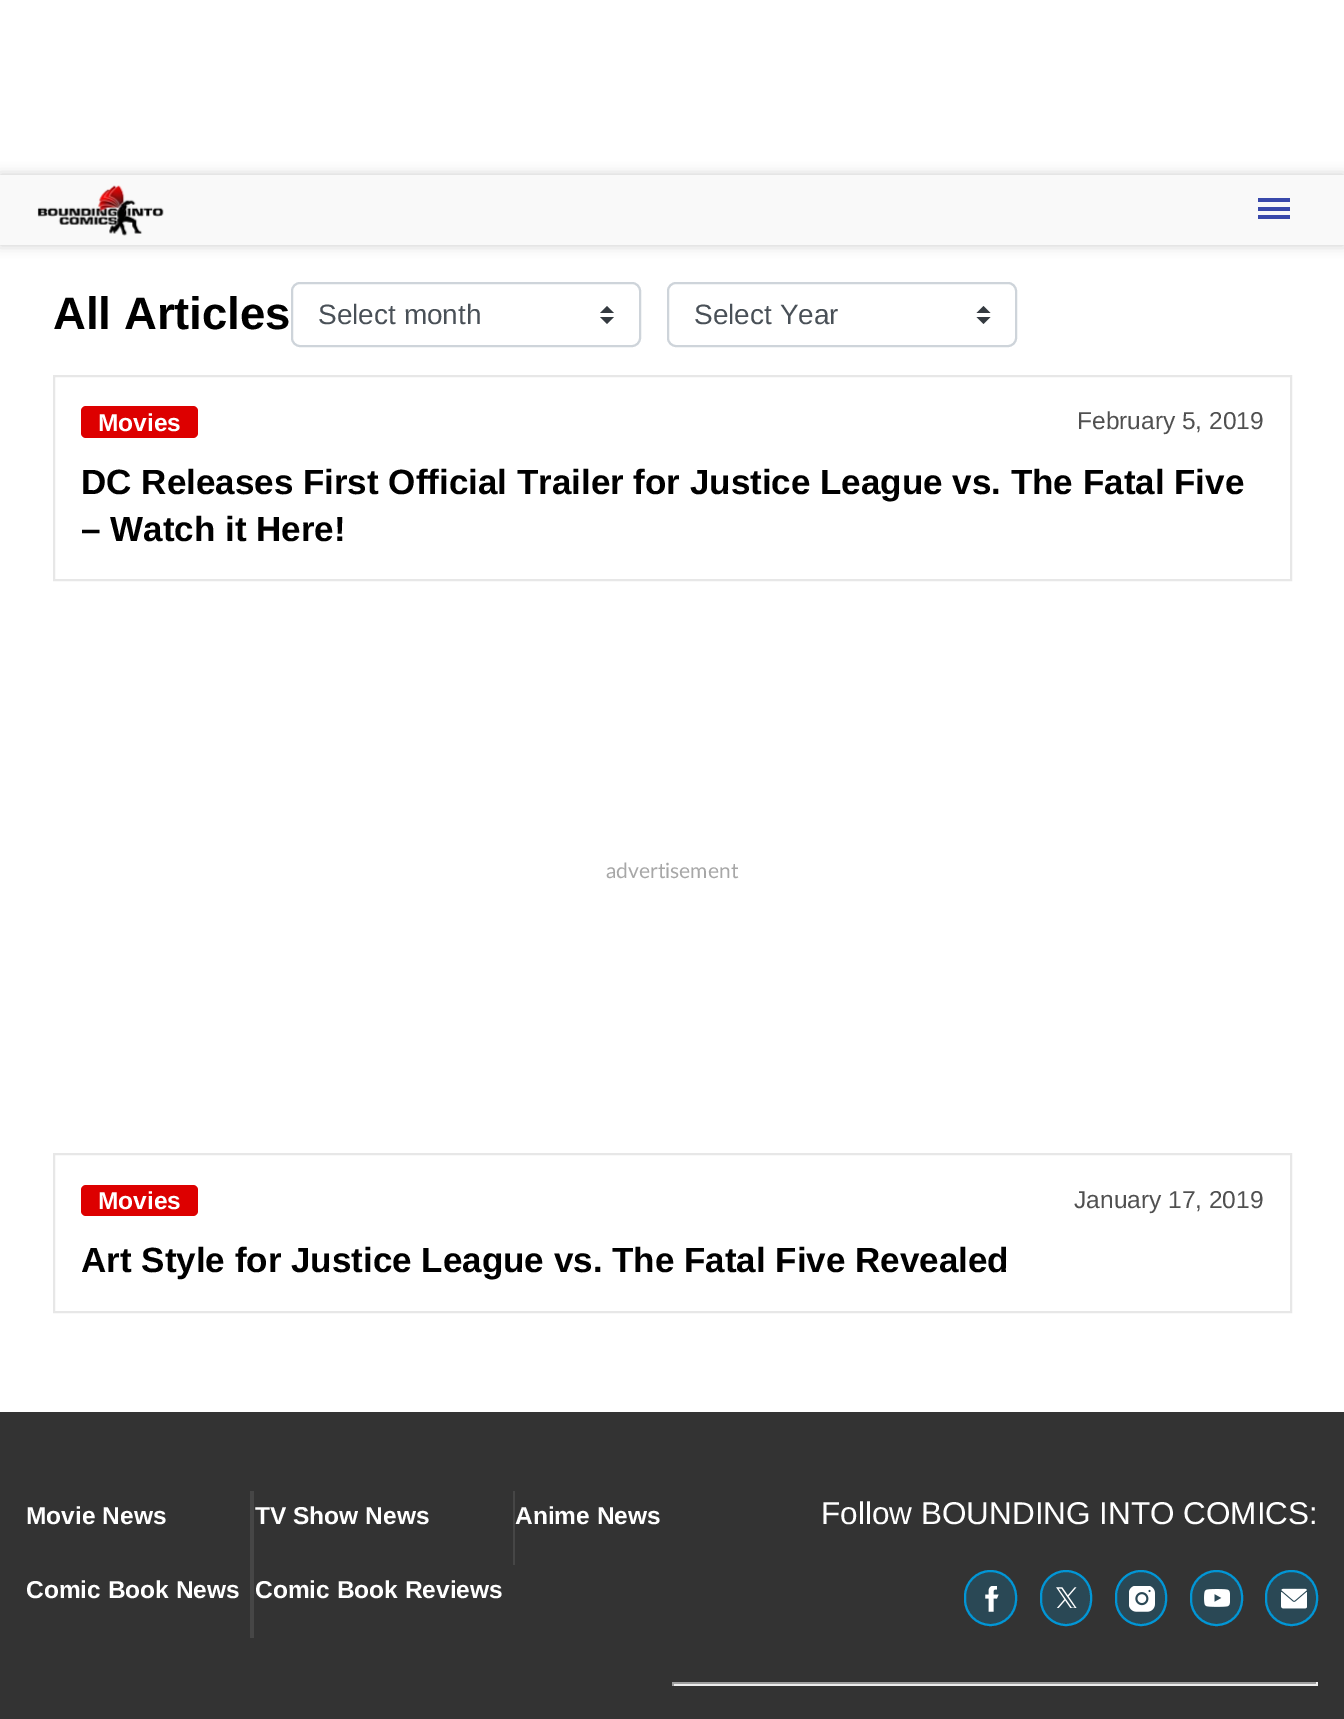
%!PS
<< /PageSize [1344 1719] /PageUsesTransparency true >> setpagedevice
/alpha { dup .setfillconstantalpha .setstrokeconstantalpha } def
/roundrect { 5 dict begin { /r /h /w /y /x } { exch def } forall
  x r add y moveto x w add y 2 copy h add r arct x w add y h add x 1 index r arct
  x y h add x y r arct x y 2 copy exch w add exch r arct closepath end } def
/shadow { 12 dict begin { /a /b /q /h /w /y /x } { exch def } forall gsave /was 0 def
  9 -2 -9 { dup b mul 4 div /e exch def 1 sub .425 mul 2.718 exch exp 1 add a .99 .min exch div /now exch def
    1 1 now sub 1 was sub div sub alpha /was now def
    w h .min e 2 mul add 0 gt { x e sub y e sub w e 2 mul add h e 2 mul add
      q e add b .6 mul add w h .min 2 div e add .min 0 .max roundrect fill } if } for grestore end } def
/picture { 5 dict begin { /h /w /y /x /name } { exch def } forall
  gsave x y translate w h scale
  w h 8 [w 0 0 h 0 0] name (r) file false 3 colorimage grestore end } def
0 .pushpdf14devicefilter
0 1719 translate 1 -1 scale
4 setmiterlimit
1 setgray
0 0 1344 1719 rectfill
0 setgray
0 175 1344 70 0 6 0.2 shadow
0.976 setgray
0 175 1344 70 rectfill
(img1.rgb) 37 185 127 51 picture
0.224 0.286 0.671 setrgbcolor
1258 198 32 4 rectfill
1258 207 32 4 rectfill
1258 215 32 4 rectfill
/LiberationSans-Bold [45.5 0 0 -45.5 0 0] selectfont
0 setgray
53 329 moveto (All Articles) show
0.204 0.227 0.251 setrgbcolor
newpath 607 306 moveto 600 313 lineto 614 313 lineto closepath 607 324 moveto 600 317 lineto 614 317 lineto closepath fill
0.808 0.831 0.855 setrgbcolor
2 setlinewidth
292 283 348 63 8 roundrect stroke
/LiberationSans-Regular [28 0 0 -28 0 0] selectfont
0.286 0.314 0.341 setrgbcolor
318 324 moveto (Select month) show
0.204 0.227 0.251 setrgbcolor
newpath 983.5 306 moveto 976.5 313 lineto 990.5 313 lineto closepath 983.5 324 moveto 976.5 317 lineto 990.5 317 lineto closepath fill
0.808 0.831 0.855 setrgbcolor
668 283 348 63 8 roundrect stroke
0.286 0.314 0.341 setrgbcolor
694 324 moveto (Select Year) show
0.906 setgray
54 376 1237 204 rectstroke
0.867 0 0 setrgbcolor
81 406 117 32 5 roundrect fill
/LiberationSans-Bold [24.5 0 0 -24.5 0 0] selectfont
1 setgray
98 431 moveto (Movies) show
/LiberationSans-Regular [24.5 0 0 -24.5 0 0] selectfont
0.314 setgray
1077 429 moveto (February 5, 2019) show
/LiberationSans-Bold [35 0 0 -35 0 0] selectfont
0 setgray
81 494 moveto (DC Releases First Official Trailer for Justice League vs. The Fatal Five) show
81 541 moveto (– Watch it Here!) show
/Lato-Regular [21 0 0 -21 0 0] selectfont
0.655 setgray
606 878 moveto (advertisement) show
0.906 setgray
54 1154 1237 158 rectstroke
0.867 0 0 setrgbcolor
81 1185 117 31 5 roundrect fill
/LiberationSans-Bold [24.5 0 0 -24.5 0 0] selectfont
1 setgray
98 1209 moveto (Movies) show
/LiberationSans-Regular [24.5 0 0 -24.5 0 0] selectfont
0.314 setgray
1074 1208 moveto (January 17, 2019) show
/LiberationSans-Bold [35 0 0 -35 0 0] selectfont
0 setgray
81 1272 moveto (Art Style for Justice League vs. The Fatal Five Revealed) show
0.2 setgray
0 1412 1344 307 rectfill
0.275 setgray
250 1491 4 74 rectfill
/LiberationSans-Bold [24.5 0 0 -24.5 0 0] selectfont
1 setgray
26 1524 moveto (Movie News) show
255 1524 moveto (TV Show News) show
0.275 setgray
513 1491 2 74 rectfill
1 setgray
515 1524 moveto (Anime News) show
0.275 setgray
250 1565 4 73 rectfill
1 setgray
26 1598 moveto (Comic Book News) show
255 1598 moveto (Comic Book Reviews) show
/LiberationSans-Regular [31.5 0 0 -31.5 0 0] selectfont
821 1524 moveto (Follow BOUNDING INTO COMICS:) show
0.165 0.282 0.333 setrgbcolor
965 1571 51 54 25.5 roundrect gsave fill grestore
0.004 0.588 0.839 setrgbcolor
stroke
(img2.rgb) 985 1586 14 26 picture
0.165 0.282 0.333 setrgbcolor
1041 1571 50 54 25 roundrect gsave fill grestore
0.004 0.588 0.839 setrgbcolor
stroke
(img3.rgb) 1056 1587 21 21 picture
0.165 0.282 0.333 setrgbcolor
1116 1571 50 54 25 roundrect gsave fill grestore
0.004 0.588 0.839 setrgbcolor
stroke
(img4.rgb) 1129 1586 26 26 picture
0.165 0.282 0.333 setrgbcolor
1191 1571 51 54 25.5 roundrect gsave fill grestore
0.004 0.588 0.839 setrgbcolor
stroke
(img5.rgb) 1204 1589 26 18 picture
0.165 0.282 0.333 setrgbcolor
1266 1571 51 54 25.5 roundrect gsave fill grestore
0.004 0.588 0.839 setrgbcolor
stroke
(img6.rgb) 1281 1588 26 21 picture
0.624 setgray
672 1682 646 2 rectfill
0.933 setgray
1316 1682 2 4 rectfill
672 1684 646 2 rectfill
0.624 setgray
672 1682 2 4 rectfill
.poppdf14devicefilter showpage
